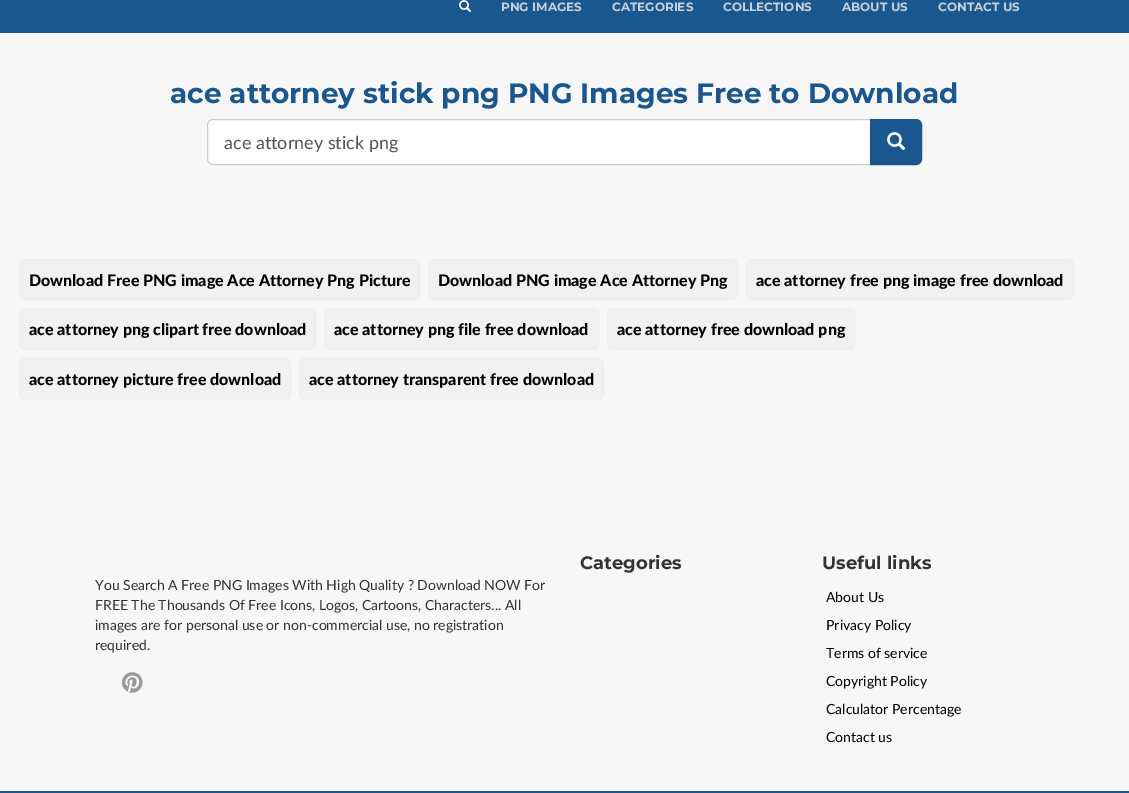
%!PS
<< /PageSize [1129 793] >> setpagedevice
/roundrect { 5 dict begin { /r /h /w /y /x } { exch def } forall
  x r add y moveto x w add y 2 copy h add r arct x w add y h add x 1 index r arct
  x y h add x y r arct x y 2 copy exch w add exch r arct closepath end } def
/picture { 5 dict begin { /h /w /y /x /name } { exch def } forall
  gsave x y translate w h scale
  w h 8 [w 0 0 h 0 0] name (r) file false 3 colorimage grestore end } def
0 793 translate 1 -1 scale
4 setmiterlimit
0.969 setgray
0 0 1129 793 rectfill
0.098 0.341 0.557 setrgbcolor
0 0 1129 33 rectfill
(img1.rgb) 459 0 12 12 picture
/Montserrat-Thin [12 0 0 -12 0 0] selectfont
0.773 0.816 0.847 setrgbcolor
501 11 moveto (PNG IMAGES) show
612 11 moveto (CATEGORIES) show
723 11 moveto (COLLECTIONS) show
842 11 moveto (ABOUT US) show
938 11 moveto (CONTACT US) show
/Montserrat-Thin [28 0 0 -28 0 0] selectfont
0.098 0.341 0.557 setrgbcolor
170 103 moveto (ace attorney stick png PNG Images Free to Download) show
1 setgray
newpath 213 119.5 moveto 870.5 119.5 lineto 870.5 164.5 lineto 213 164.5 lineto 210 164.5 207.5 162 207.5 159 curveto 207.5 125 lineto 207.5 122 210 119.5 213 119.5 curveto closepath gsave fill grestore
0.8 setgray
stroke
/Lato-Regular [18 0 0 -18 0 0] selectfont
0.333 setgray
224 149 moveto (ace attorney stick png) show
0.098 0.341 0.557 setrgbcolor
newpath 870.5 119.5 moveto 916 119.5 lineto 919 119.5 921.5 122 921.5 125 curveto 921.5 159 lineto 921.5 162 919 164.5 916 164.5 curveto 870.5 164.5 lineto closepath gsave fill grestore
stroke
(img2.rgb) 887 132 19 19 picture
0.933 setgray
19.5 259.5 400 40 5.5 roundrect stroke
0.945 setgray
20 260 399 39 5 roundrect fill
/Lato-Black [16 0 0 -16 0 0] selectfont
0 setgray
29 286 moveto (Download Free PNG image Ace Attorney Png Picture) show
0.933 setgray
428.5 259.5 309 40 5.5 roundrect stroke
0.945 setgray
429 260 308 39 5 roundrect fill
0 setgray
438 286 moveto (Download PNG image Ace Attorney Png) show
0.933 setgray
746.5 259.5 327 40 5.5 roundrect stroke
0.945 setgray
747 260 326 39 5 roundrect fill
0 setgray
756 286 moveto (ace attorney free png image free download) show
0.933 setgray
19.5 308.5 296 41 5.5 roundrect stroke
0.945 setgray
20 309 295 40 5 roundrect fill
0 setgray
29 335 moveto (ace attorney png clipart free download) show
0.933 setgray
324.5 308.5 274 41 5.5 roundrect stroke
0.945 setgray
325 309 273 40 5 roundrect fill
0 setgray
334 335 moveto (ace attorney png file free download) show
0.933 setgray
607.5 308.5 247 41 5.5 roundrect stroke
0.945 setgray
608 309 246 40 5 roundrect fill
0 setgray
617 335 moveto (ace attorney free download png) show
0.933 setgray
19.5 358.5 271 41 5.5 roundrect stroke
0.945 setgray
20 359 270 40 5 roundrect fill
0 setgray
29 385 moveto (ace attorney picture free download) show
0.933 setgray
299.5 358.5 304 41 5.5 roundrect stroke
0.945 setgray
300 359 303 40 5 roundrect fill
0 setgray
309 385 moveto (ace attorney transparent free download) show
/Lato-Regular [14 0 0 -14 0 0] selectfont
0.2 setgray
95 590 moveto (You Search A Free PNG Images With High Quality ? Download NOW For) show
95 610 moveto (FREE The Thousands Of Free Icons, Logos, Cartoons, Characters... All) show
95 630 moveto (images are for personal use or non-commercial use, no registration) show
95 650 moveto (required.) show
(img3.rgb) 122 672 21 21 picture
/Montserrat-Thin [18 0 0 -18 0 0] selectfont
580 569 moveto (Categories) show
822 569 moveto (Useful links) show
/Lato-Regular [14 0 0 -14 0 0] selectfont
0 setgray
826 602 moveto (About Us) show
826 630 moveto (Privacy Policy) show
826 658 moveto (Terms of service) show
826 686 moveto (Copyright Policy) show
826 714 moveto (Calculator Percentage) show
826 742 moveto (Contact us) show
0.098 0.341 0.557 setrgbcolor
0 791 1129 2 rectfill
showpage
